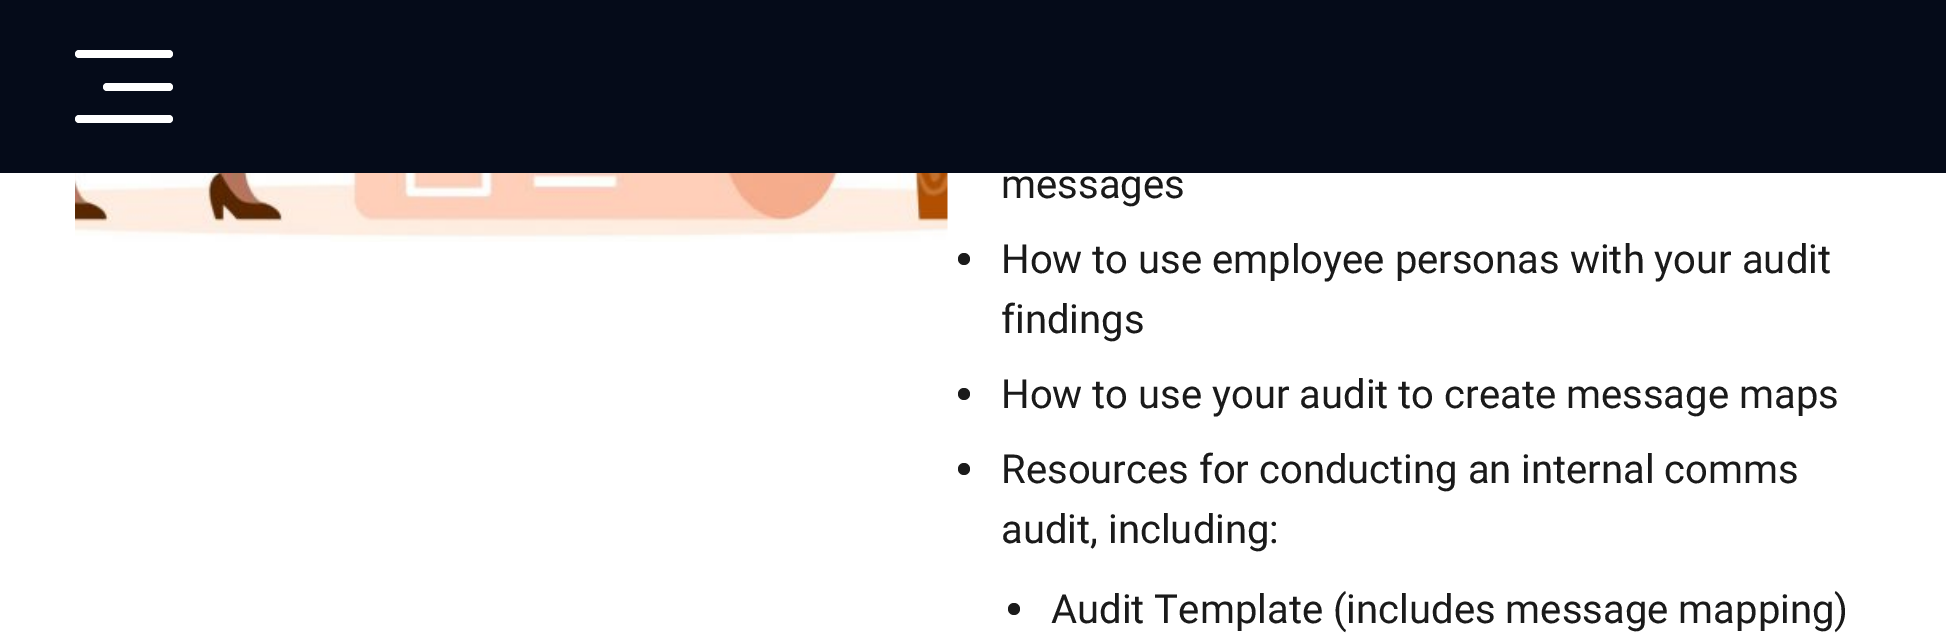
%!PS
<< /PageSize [1946 640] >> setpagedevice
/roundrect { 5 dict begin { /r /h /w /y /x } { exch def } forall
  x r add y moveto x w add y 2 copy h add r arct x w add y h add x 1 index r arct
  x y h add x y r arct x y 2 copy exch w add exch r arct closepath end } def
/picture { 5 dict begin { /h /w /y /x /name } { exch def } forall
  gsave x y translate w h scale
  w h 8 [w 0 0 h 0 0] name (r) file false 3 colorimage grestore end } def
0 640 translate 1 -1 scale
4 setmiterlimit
1 setgray
0 0 1946 640 rectfill
0.02 0.043 0.098 setrgbcolor
0 0 1946 173 rectfill
1 setgray
75 50 98 8 4 roundrect fill
103 83 70 8 4 roundrect fill
75 115 98 8 4 roundrect fill
(img1.rgb) 75 173 873 69 picture
/Roboto-Regular [40 0 0 -40 0 0] selectfont
0.102 setgray
1001 198 moveto (messages) show
newpath 964 259 6 0 360 arc closepath fill
1001 273 moveto (How to use employee personas with your audit) show
1001 333 moveto (findings) show
newpath 964 394 6 0 360 arc closepath fill
1001 408 moveto (How to use your audit to create message maps) show
newpath 964 469 6 0 360 arc closepath fill
1001 483 moveto (Resources for conducting an internal comms) show
1001 543 moveto (audit, including:) show
newpath 1014 609 6 0 360 arc closepath fill
1051 623 moveto (Audit Template \(includes message mapping\)) show
showpage
